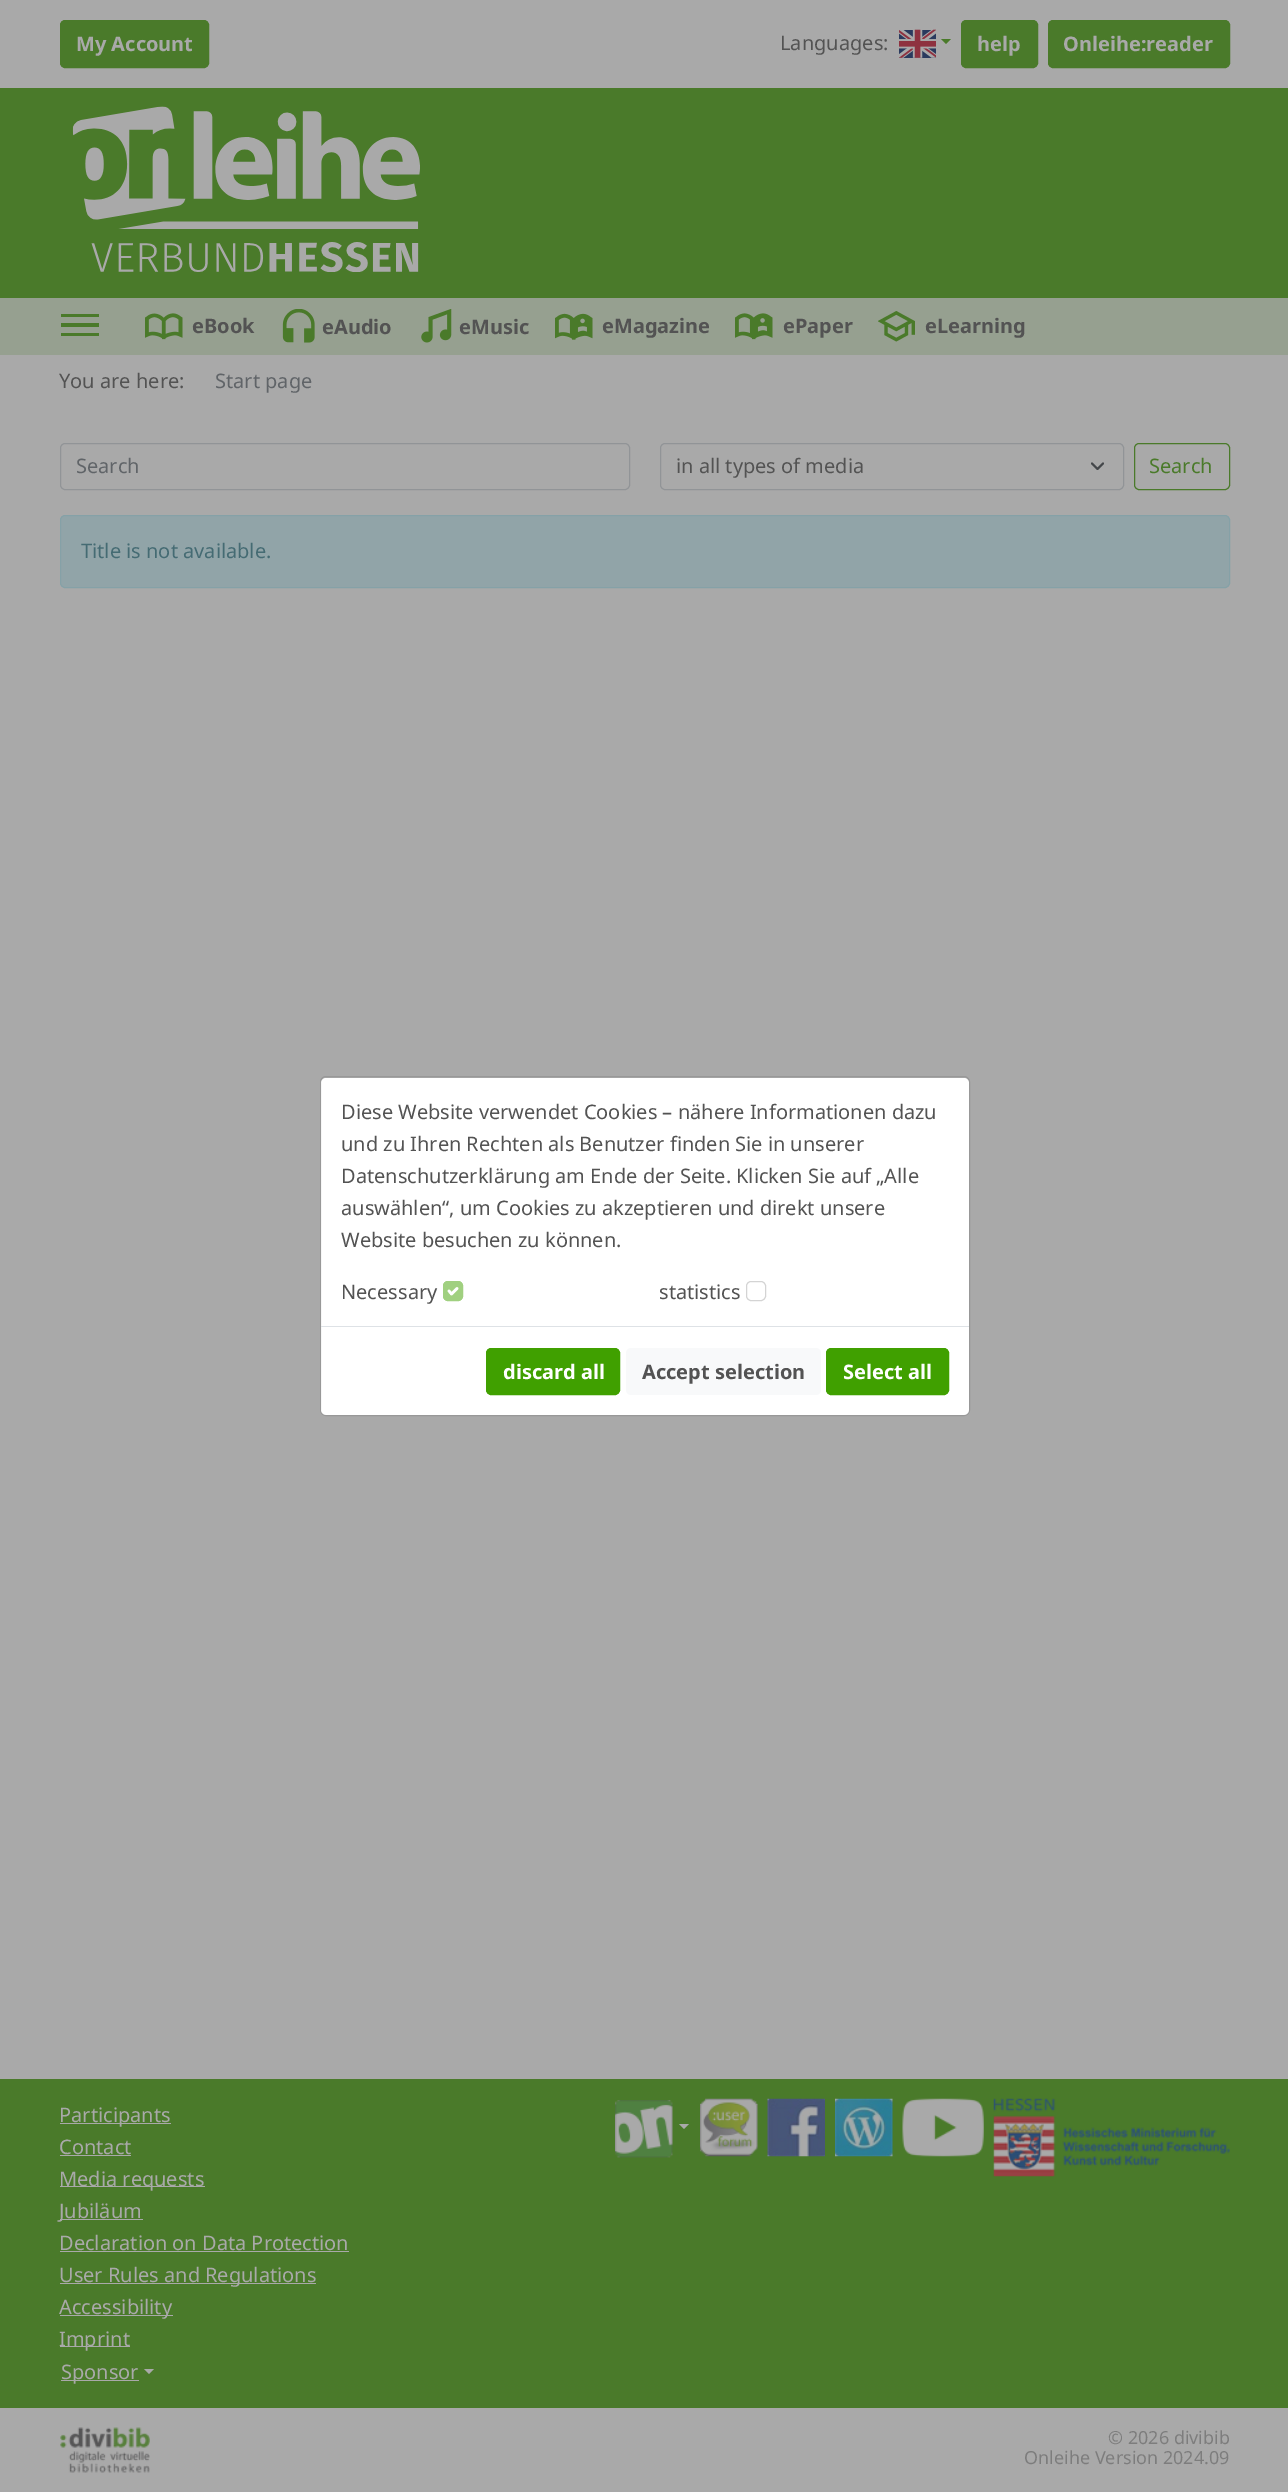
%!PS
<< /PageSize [1288 2492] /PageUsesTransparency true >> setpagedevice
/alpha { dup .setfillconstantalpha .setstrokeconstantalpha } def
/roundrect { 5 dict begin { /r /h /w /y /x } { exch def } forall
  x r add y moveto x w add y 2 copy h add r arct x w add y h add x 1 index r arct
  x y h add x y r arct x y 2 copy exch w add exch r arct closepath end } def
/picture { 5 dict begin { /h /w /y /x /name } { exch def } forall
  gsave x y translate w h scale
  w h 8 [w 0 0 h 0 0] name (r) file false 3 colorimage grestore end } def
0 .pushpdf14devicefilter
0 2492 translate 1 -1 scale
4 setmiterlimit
0.663 setgray
0 0 1288 2492 rectfill
0.29 0.478 0.165 setrgbcolor
60.5 20.5 148 47 4.5 roundrect gsave fill grestore
stroke
/NotoSans-Bold [20 0 0 -20 0 0] selectfont
0.663 setgray
76 51 moveto (My Account) show
/NotoSans-Regular [20 0 0 -20 0 0] selectfont
0.325 setgray
780 50 moveto (Languages:) show
(img1.rgb) 899 29 37 29 picture
0.29 0.478 0.165 setrgbcolor
newpath 941 39 moveto 951 39 lineto 946 44 lineto closepath fill
961.5 20.5 76 47 4.5 roundrect gsave fill grestore
stroke
/NotoSans-Bold [20 0 0 -20 0 0] selectfont
0.663 setgray
977 51 moveto (help) show
0.29 0.478 0.165 setrgbcolor
1048.5 20.5 181 47 4.5 roundrect gsave fill grestore
stroke
0.663 setgray
1063 51 moveto (Onleihe:reader) show
0.29 0.478 0.165 setrgbcolor
0 88 1288 210 rectfill
(img2.rgb) 72 106 348 166 picture
0.588 0.627 0.565 setrgbcolor
0 298 1288 57 rectfill
0.29 0.478 0.165 setrgbcolor
61 314 38 3 rectfill
61 323 38 4 rectfill
61 333 38 3 rectfill
(img3.rgb) 145 313 38 27 picture
0.325 setgray
192 333 moveto (eBook) show
(img4.rgb) 282 309 33 34 picture
322 334 moveto (eAudio) show
(img5.rgb) 421 309 31 34 picture
459 334 moveto (eMusic) show
(img6.rgb) 555 313 38 27 picture
602 333 moveto (eMagazine) show
(img7.rgb) 735 313 38 27 picture
783 333 moveto (ePaper) show
(img8.rgb) 878 311 37 31 picture
925 333 moveto (eLearning) show
/NotoSans-Regular [20 0 0 -20 0 0] selectfont
59 388 moveto (You are here:) show
0.376 0.392 0.408 setrgbcolor
215 388 moveto (Start page) show
0.569 0.58 0.592 setrgbcolor
60.5 443.5 569 46 4.5 roundrect stroke
0.376 0.392 0.408 setrgbcolor
76 473 moveto (Search) show
0.267 0.278 0.29 setrgbcolor
1.9 setlinewidth
1 setlinecap
1 setlinejoin
newpath 1092 463.5 moveto 1097.5 469 lineto 1103 463.5 lineto stroke
0.569 0.58 0.592 setrgbcolor
1 setlinewidth
0 setlinecap
0 setlinejoin
660.5 443.5 463 46 4.5 roundrect stroke
0.325 setgray
676 473 moveto (in all types of media) show
0.29 0.478 0.165 setrgbcolor
1134.5 443.5 95 46 4.5 roundrect stroke
1149 473 moveto (Search) show
0.569 0.643 0.659 setrgbcolor
60.5 515.5 1169 72 4.5 roundrect gsave fill grestore
0.522 0.631 0.655 setrgbcolor
stroke
0.271 0.42 0.451 setrgbcolor
81 558 moveto (Title is not available.) show
1 setgray
321 1078 648 337 5 roundrect fill
0.2 alpha
0.325 setgray
320.5 1076.5 649 339 5.5 roundrect stroke
1 alpha
341 1119 moveto (Diese Website verwendet Cookies – nähere Informationen dazu) show
341 1151 moveto (und zu Ihren Rechten als Benutzer finden Sie in unserer) show
341 1183 moveto (Datenschutzerklärung am Ende der Seite. Klicken Sie auf „Alle) show
341 1215 moveto (auswählen“, um Cookies zu akzeptieren und direkt unsere) show
341 1247 moveto (Website besuchen zu können.) show
341 1299 moveto (Necessary) show
0.627 0.816 0.502 setrgbcolor
443 1281 20 20 5 roundrect fill
1 setgray
2.6 setlinewidth
1 setlinecap
1 setlinejoin
newpath 449 1291 moveto 451.5 1294 lineto 457 1288.5 lineto stroke
0.627 0.816 0.502 setrgbcolor
1 setlinewidth
0 setlinecap
0 setlinejoin
443.5 1281.5 19 19 4.5 roundrect stroke
0.325 setgray
659 1299 moveto (statistics) show
0.831 setgray
746.5 1281.5 19 19 4.5 roundrect stroke
0.871 0.886 0.902 setrgbcolor
321 1326 648 1 rectfill
0.251 0.627 0 setrgbcolor
486.5 1348.5 133 46 4.5 roundrect gsave fill grestore
stroke
/NotoSans-Bold [20 0 0 -20 0 0] selectfont
1 setgray
503 1379 moveto (discard all) show
0.973 0.976 0.98 setrgbcolor
626 1348 195 47 5 roundrect fill
0.325 setgray
642 1379 moveto (Accept selection) show
0.251 0.627 0 setrgbcolor
826.5 1348.5 122 46 4.5 roundrect gsave fill grestore
stroke
1 setgray
843 1379 moveto (Select all) show
0.29 0.478 0.165 setrgbcolor
0 2079 1288 329 rectfill
0.663 setgray
60 2123 111 1 rectfill
/NotoSans-Regular [20 0 0 -20 0 0] selectfont
59 2122 moveto (Participants) show
59 2154 moveto (Contact) show
60 2155 71 1 rectfill
60 2186 145 1 rectfill
59 2186 moveto (Media requests) show
60 2219 83 1 rectfill
59 2218 moveto (Jubiläum) show
59 2250 moveto (Declaration on Data Protection) show
60 2251 289 1 rectfill
60 2283 256 1 rectfill
59 2282 moveto (User Rules and Regulations) show
60 2315 113 1 rectfill
59 2314 moveto (Accessibility) show
60 2346 70 1 rectfill
59 2346 moveto (Imprint) show
61 2380 78 1 rectfill
61 2379 moveto (Sponsor) show
newpath 144 2369 moveto 154 2369 lineto 149 2374 lineto closepath fill
(img9.rgb) 615 2100 58 58 picture
newpath 679 2124 moveto 689 2124 lineto 684 2129 lineto closepath fill
(img10.rgb) 700 2098 58 59 picture
(img11.rgb) 767 2098 58 59 picture
(img12.rgb) 835 2098 58 59 picture
(img13.rgb) 902 2098 82 59 picture
(img14.rgb) 993 2098 237 79 picture
(img15.rgb) 60 2427 90 46 picture
/NotoSans-Regular [18 0 0 -18 0 0] selectfont
0.49 setgray
1108 2444 moveto (© 2026 divibib) show
1024 2464 moveto (Onleihe Version 2024.09) show
.poppdf14devicefilter showpage
